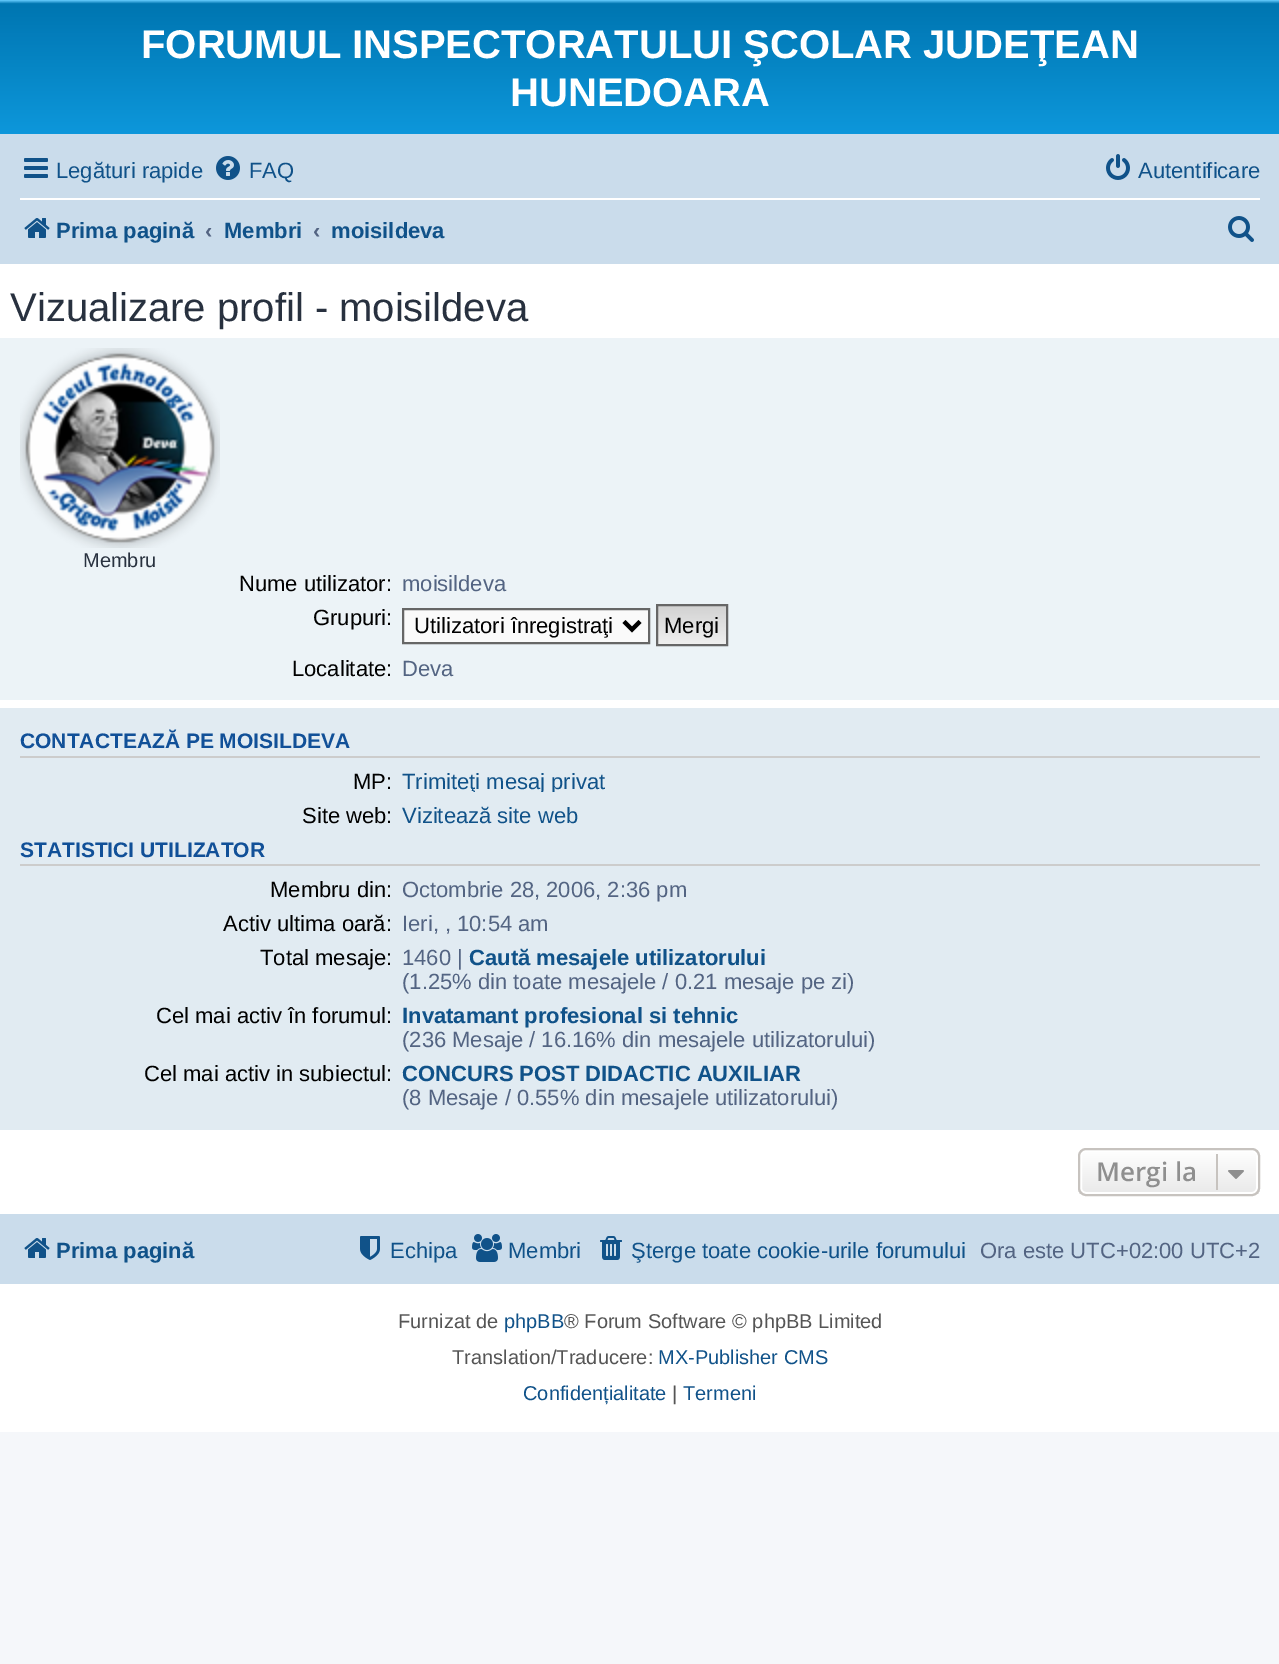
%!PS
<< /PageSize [1279 1664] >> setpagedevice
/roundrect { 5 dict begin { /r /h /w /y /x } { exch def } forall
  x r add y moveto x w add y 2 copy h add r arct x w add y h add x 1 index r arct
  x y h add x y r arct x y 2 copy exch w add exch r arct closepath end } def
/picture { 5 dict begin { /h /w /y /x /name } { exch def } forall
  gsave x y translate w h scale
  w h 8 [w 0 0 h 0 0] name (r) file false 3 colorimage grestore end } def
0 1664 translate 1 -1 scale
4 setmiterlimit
0.961 0.969 0.98 setrgbcolor
0 0 1279 1664 rectfill
1 setgray
0 264 1279 1168 rectfill
gsave newpath 0 0 moveto 1279 0 lineto 1279 134 lineto 0 134 lineto closepath clip newpath
<< /ShadingType 2 /ColorSpace /DeviceRGB /Coords [640 0 640 184] /Extend [true true] /Function << /FunctionType 3 /Domain [0 1] /Functions [<< /FunctionType 2 /Domain [0 1] /C0 [0.416 0.808 1] /C1 [0 0.463 0.694] /N 1 >> << /FunctionType 2 /Domain [0 1] /C0 [0 0.463 0.694] /C1 [0.071 0.639 0.922] /N 1 >>] /Bounds [0.02] /Encode [0 1 0 1] >> >> shfill grestore
/LiberationSans-Bold [40 0 0 -40 0 0] selectfont
141 58 moveto (FORUMUL INSPECTORATULUI ŞCOLAR JUDEŢEAN) show
510 106 moveto (HUNEDOARA) show
0.792 0.863 0.922 setrgbcolor
0 134 1279 130 rectfill
(img1.rgb) 24 158 24 20 picture
/LiberationSans-Regular [22 0 0 -22 0 0] selectfont
0.063 0.322 0.537 setrgbcolor
56 178 moveto (Legături rapide) show
(img2.rgb) 216 156 24 24 picture
249 178 moveto (FAQ) show
(img3.rgb) 1106 154 24 26 picture
1138 178 moveto (Autentificare) show
1 setgray
20 198 1240 2 rectfill
(img4.rgb) 24 218 26 20 picture
/LiberationSans-Bold [22 0 0 -22 0 0] selectfont
0.063 0.322 0.537 setrgbcolor
56 238 moveto (Prima pagină) show
0.325 0.392 0.51 setrgbcolor
205 238 moveto (‹) show
0.063 0.322 0.537 setrgbcolor
224 238 moveto (Membri) show
0.325 0.392 0.51 setrgbcolor
313 238 moveto (‹) show
0.063 0.322 0.537 setrgbcolor
331 238 moveto (moisildeva) show
(img5.rgb) 1228 216 26 26 picture
/LiberationSans-Regular [40 0 0 -40 0 0] selectfont
0.157 0.192 0.247 setrgbcolor
10 321 moveto (Vizualizare profil - moisildeva) show
0.925 0.953 0.969 setrgbcolor
0 338 1279 362 rectfill
(img6.rgb) 20 348 200 200 picture
/LiberationSans-Regular [20 0 0 -20 0 0] selectfont
0.157 0.192 0.247 setrgbcolor
83 567 moveto (Membru) show
/LiberationSans-Regular [22 0 0 -22 0 0] selectfont
0 setgray
239 591 moveto (Nume utilizator:) show
0.325 0.392 0.51 setrgbcolor
402 591 moveto (moisildeva) show
0 setgray
313 625 moveto (Grupuri:) show
0.98 setgray
newpath 403 609 moveto 649 609 lineto 649 643 lineto 403 643 lineto closepath gsave fill grestore
0.4 setgray
2 setlinewidth
stroke
0 setgray
4 setlinewidth
newpath 624 621.5 moveto 632 629.5 lineto 640 621.5 lineto stroke
414 633 moveto (Utilizatori înregistraţi) show
gsave newpath 658 606 moveto 726 606 lineto 726 644 lineto 658 644 lineto closepath clip newpath
<< /ShadingType 2 /ColorSpace /DeviceRGB /Coords [692 606 692 644] /Extend [true true] /Function << /FunctionType 2 /Domain [0 1] /C0 [0.824 0.824 0.824] /C1 [0.937 0.937 0.937] /N 1 >> >> shfill grestore
0.4 setgray
2 setlinewidth
657 605 70 40 rectstroke
0 setgray
664 633 moveto (Mergi) show
292 676 moveto (Localitate:) show
0.325 0.392 0.51 setrgbcolor
402 676 moveto (Deva) show
0.882 0.922 0.949 setrgbcolor
0 708 1279 422 rectfill
0.8 setgray
20 756 1240 2 rectfill
/LiberationSans-Bold [21 0 0 -21 0 0] selectfont
0.067 0.314 0.596 setrgbcolor
20 748 moveto (CONTACTEAZĂ PE MOISILDEVA) show
/LiberationSans-Regular [22 0 0 -22 0 0] selectfont
0 setgray
353 789 moveto (MP:) show
gsave
392 768 816 24 rectclip
0.063 0.322 0.537 setrgbcolor
402 789 moveto (Trimiteţi mesaj privat) show
grestore
302 823 moveto (Site web:) show
0.063 0.322 0.537 setrgbcolor
402 823 moveto (Vizitează site web) show
0.8 setgray
20 864 1240 2 rectfill
/LiberationSans-Bold [21 0 0 -21 0 0] selectfont
0.067 0.314 0.596 setrgbcolor
20 857 moveto (STATISTICI UTILIZATOR) show
/LiberationSans-Regular [22 0 0 -22 0 0] selectfont
0 setgray
270 897 moveto (Membru din:) show
0.325 0.392 0.51 setrgbcolor
402 897 moveto (Octombrie 28, 2006, 2:36 pm) show
0 setgray
223 931 moveto (Activ ultima oară:) show
0.325 0.392 0.51 setrgbcolor
402 931 moveto (Ieri, , 10:54 am) show
0 setgray
260 965 moveto (Total mesaje:) show
0.325 0.392 0.51 setrgbcolor
402 965 moveto (1460 |) show
/LiberationSans-Bold [22 0 0 -22 0 0] selectfont
0.063 0.322 0.537 setrgbcolor
469 965 moveto (Caută mesajele utilizatorului) show
/LiberationSans-Regular [22 0 0 -22 0 0] selectfont
0.325 0.392 0.51 setrgbcolor
402 989 moveto (\(1.25% din toate mesajele / 0.21 mesaje pe zi\)) show
0 setgray
156 1023 moveto (Cel mai activ în forumul:) show
/LiberationSans-Bold [22 0 0 -22 0 0] selectfont
0.063 0.322 0.537 setrgbcolor
402 1023 moveto (Invatamant profesional si tehnic) show
/LiberationSans-Regular [22 0 0 -22 0 0] selectfont
0.325 0.392 0.51 setrgbcolor
402 1047 moveto (\(236 Mesaje / 16.16% din mesajele utilizatorului\)) show
0 setgray
144 1081 moveto (Cel mai activ in subiectul:) show
/LiberationSans-Bold [22 0 0 -22 0 0] selectfont
0.063 0.322 0.537 setrgbcolor
402 1081 moveto (CONCURS POST DIDACTIC AUXILIAR) show
/LiberationSans-Regular [22 0 0 -22 0 0] selectfont
0.325 0.392 0.51 setrgbcolor
402 1105 moveto (\(8 Mesaje / 0.55% din mesajele utilizatorului\)) show
gsave
1078 1148 182 48 8 roundrect clip newpath
gsave newpath 1078 1150 moveto 1260 1150 lineto 1260 1194 lineto 1078 1194 lineto closepath clip newpath
<< /ShadingType 2 /ColorSpace /DeviceRGB /Coords [1169 1150 1169 1194] /Extend [true true] /Function << /FunctionType 2 /Domain [0 1] /C0 [1 1 1] /C1 [0.914 0.914 0.914] /N 1 >> >> shfill grestore
grestore
1 setgray
1081 1151 176 42 5 roundrect stroke
0.78 0.765 0.749 setrgbcolor
1079 1149 180 46 7 roundrect stroke
/OpenSans-SemiBold [26 0 0 -26 0 0] selectfont
0.561 setgray
1096 1181 moveto (Mergi la) show
0.78 0.765 0.749 setrgbcolor
1216 1154 2 36 rectfill
(img7.rgb) 1228 1170 16 9 picture
0.792 0.863 0.922 setrgbcolor
0 1214 1279 70 rectfill
(img4.rgb) 24 1238 26 20 picture
/LiberationSans-Bold [22 0 0 -22 0 0] selectfont
0.063 0.322 0.537 setrgbcolor
56 1258 moveto (Prima pagină) show
(img8.rgb) 360 1236 20 24 picture
/LiberationSans-Regular [22 0 0 -22 0 0] selectfont
390 1258 moveto (Echipa) show
(img9.rgb) 472 1234 30 28 picture
508 1258 moveto (Membri) show
(img10.rgb) 600 1236 22 24 picture
631 1258 moveto (Şterge toate cookie-urile forumului) show
0.325 0.392 0.51 setrgbcolor
980 1258 moveto (Ora este UTC+02:00 UTC+2) show
/LiberationSans-Regular [20 0 0 -20 0 0] selectfont
0.333 setgray
398 1328 moveto (Furnizat de) show
0.063 0.322 0.537 setrgbcolor
504 1328 moveto (phpBB) show
0.333 setgray
564 1328 moveto (® Forum Software © phpBB Limited) show
452 1364 moveto (Translation/Traducere:) show
0.063 0.322 0.537 setrgbcolor
658 1364 moveto (MX-Publisher CMS) show
523 1400 moveto (Confidențialitate) show
0.333 setgray
672 1400 moveto (|) show
0.063 0.322 0.537 setrgbcolor
683 1400 moveto (Termeni) show
showpage
